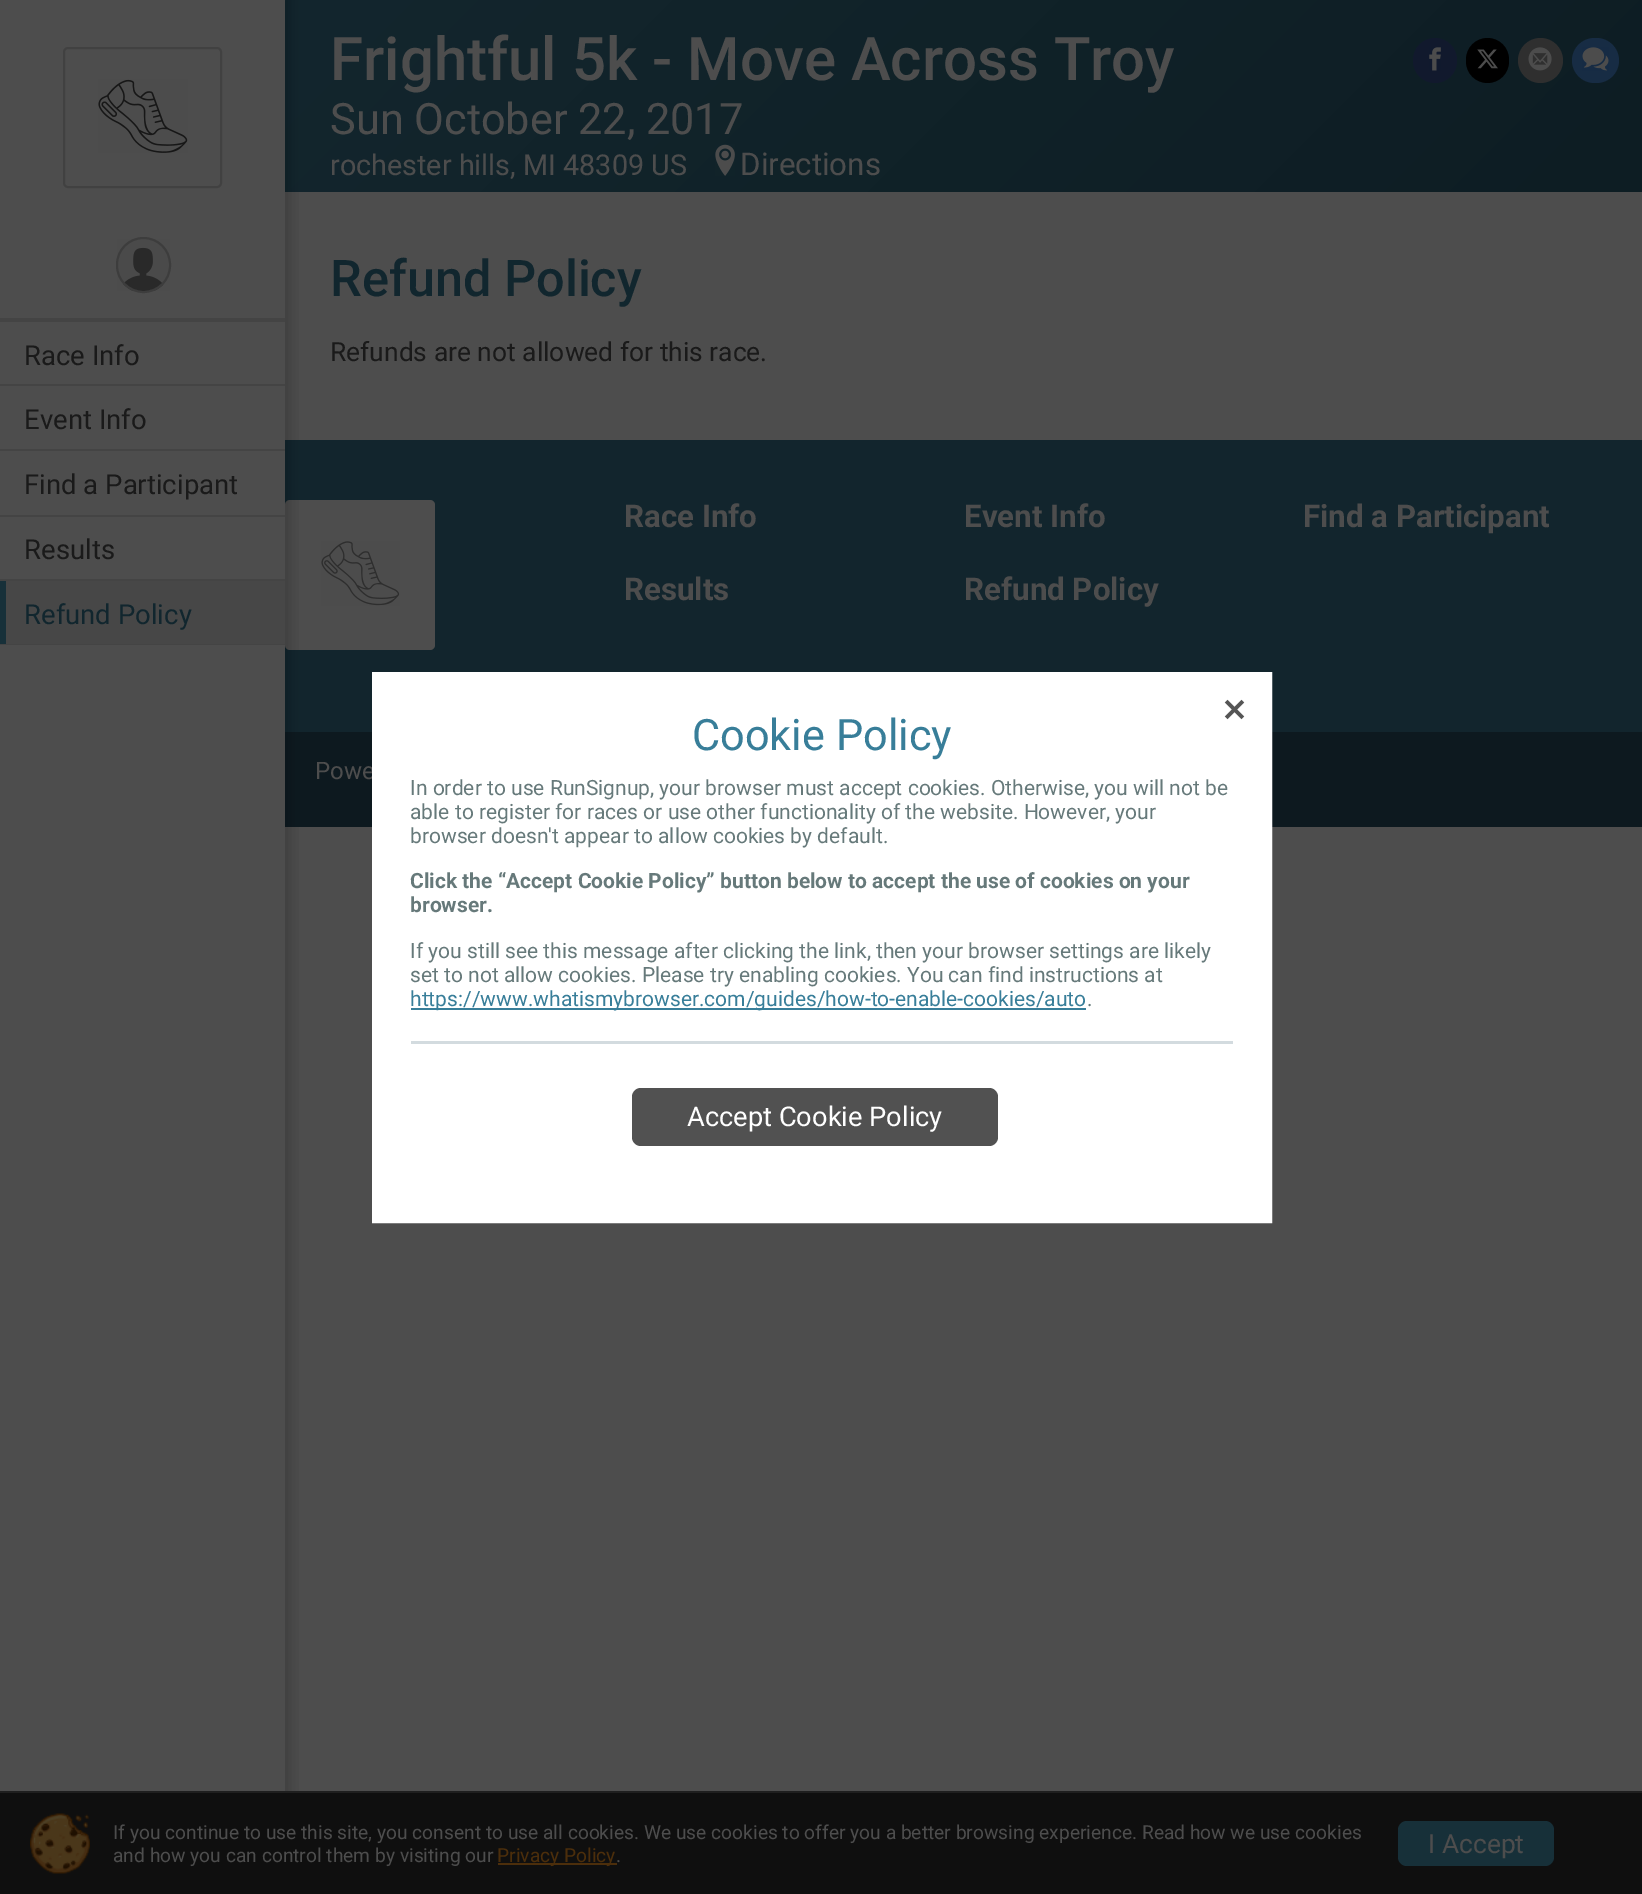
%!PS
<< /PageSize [1642 1894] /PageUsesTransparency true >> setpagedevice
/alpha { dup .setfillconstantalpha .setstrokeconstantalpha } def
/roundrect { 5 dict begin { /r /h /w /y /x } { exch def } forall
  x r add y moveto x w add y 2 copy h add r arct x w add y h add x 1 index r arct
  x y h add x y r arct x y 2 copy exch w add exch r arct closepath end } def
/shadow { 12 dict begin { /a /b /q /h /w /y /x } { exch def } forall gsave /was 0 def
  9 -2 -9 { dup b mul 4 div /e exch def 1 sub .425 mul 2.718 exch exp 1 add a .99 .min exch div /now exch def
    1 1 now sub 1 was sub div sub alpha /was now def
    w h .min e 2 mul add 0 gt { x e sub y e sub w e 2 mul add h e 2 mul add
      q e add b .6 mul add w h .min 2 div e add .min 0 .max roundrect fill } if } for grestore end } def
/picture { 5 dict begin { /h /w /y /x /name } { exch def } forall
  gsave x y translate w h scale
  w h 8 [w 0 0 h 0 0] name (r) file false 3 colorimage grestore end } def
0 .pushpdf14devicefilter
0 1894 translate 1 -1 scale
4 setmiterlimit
0.302 setgray
0 0 1642 1894 rectfill
gsave newpath 285 0 moveto 1642 0 lineto 1642 192 lineto 285 192 lineto closepath clip newpath
<< /ShadingType 2 /ColorSpace /DeviceRGB /Coords [1351 483 576 -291] /Extend [true true] /Function << /FunctionType 2 /Domain [0 1] /C0 [0.051 0.114 0.137] /C1 [0.075 0.149 0.18] /N 1 >> >> shfill grestore
/Roboto-Medium [60 0 0 -60 0 0] selectfont
330 80 moveto (Frightful 5k - Move Across Troy) show
/Roboto-Regular [43.25 0 0 -43.25 0 0] selectfont
330 134 moveto (Sun October 22, 2017) show
/Roboto-Regular [28.75 0 0 -28.75 0 0] selectfont
330 175 moveto (rochester hills, MI 48309 US) show
(img1.rgb) 715 144 20 32 picture
/Roboto-Regular [31.25 0 0 -31.25 0 0] selectfont
740 175 moveto (Directions) show
0.067 0.098 0.176 setrgbcolor
1413 38 44 45 22 roundrect fill
(img2.rgb) 1429 47 12 24 picture
0 setgray
1466 38 43 45 21.5 roundrect fill
(img3.rgb) 1477 49 21 20 picture
0.184 setgray
newpath 1540.5 60.5 22.5 0 360 arc closepath fill
(img4.rgb) 1528 47 24 24 picture
0.09 0.173 0.267 setrgbcolor
1572 38 47 45 22.5 roundrect fill
(img5.rgb) 1582 47 27 24 picture
0.051 0.098 0.122 setrgbcolor
285 732 1357 95 rectfill
0.071 0.145 0.176 setrgbcolor
285 440 1357 292 rectfill
0.302 setgray
285 500 150 150 5 roundrect fill
gsave
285 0 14 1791 rectclip
0 setgray
-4 -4 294 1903 0 7 0.2 shadow
grestore
0.255 setgray
2 setlinewidth
64 48 157 139 4 roundrect stroke
(img6.rgb) 98 79 90 74 picture
(img7.rgb) 117 239 53 52 picture
0.239 setgray
117 238 53 54 26.5 roundrect stroke
0.267 setgray
0 318 285 4 rectfill
/Roboto-Regular [27.5 0 0 -27.5 0 0] selectfont
0.102 setgray
24 365 moveto (Race Info) show
0.267 setgray
0 384 285 2 rectfill
0.102 setgray
24 429 moveto (Event Info) show
0.267 setgray
0 449 285 2 rectfill
0.102 setgray
24 494 moveto (Find a Participant) show
0.267 setgray
0 515 285 2 rectfill
0.102 setgray
24 559 moveto (Results) show
0.267 setgray
0 579 285 2 rectfill
0 644 285 1 rectfill
0.278 setgray
6 581 279 63 rectfill
0.09 0.188 0.224 setrgbcolor
0 581 6 63 rectfill
0.067 0.149 0.18 setrgbcolor
24 624 moveto (Refund Policy) show
/Roboto-Medium [50.5 0 0 -50.5 0 0] selectfont
330 296 moveto (Refund Policy) show
/Roboto-Regular [26.4 0 0 -26.4 0 0] selectfont
0.102 setgray
330 361 moveto (Refunds are not allowed for this race.) show
(img8.rgb) 321 541 79 65 picture
/Roboto-Bold [31.25 0 0 -31.25 0 0] selectfont
0.302 setgray
624 527 moveto (Race Info) show
624 600 moveto (Results) show
964 527 moveto (Event Info) show
964 600 moveto (Refund Policy) show
1303 527 moveto (Find a Participant) show
/Roboto-Regular [24 0 0 -24 0 0] selectfont
315 779 moveto (Powe) show
1 setgray
373 673 898 549 rectstroke
374 674 896 547 rectfill
(img9.rgb) 1224 699 21 21 picture
/Roboto-Regular [43.25 0 0 -43.25 0 0] selectfont
0.22 0.494 0.6 setrgbcolor
692 750 moveto (Cookie Policy) show
/Roboto-Regular [21 0 0 -21 0 0] selectfont
0.4 0.475 0.478 setrgbcolor
410 795 moveto (In order to use RunSignup, your browser must accept cookies. Otherwise, you will not be) show
410 819 moveto (able to register for races or use other functionality of the website. However, your) show
410 843 moveto (browser doesn't appear to allow cookies by default.) show
/Roboto-Bold [21 0 0 -21 0 0] selectfont
410 888 moveto (Click the “Accept Cookie Policy” button below to accept the use of cookies on your) show
410 912 moveto (browser.) show
/Roboto-Regular [21 0 0 -21 0 0] selectfont
410 958 moveto (If you still see this message after clicking the link, then your browser settings are likely) show
410 982 moveto (set to not allow cookies. Please try enabling cookies. You can find instructions at) show
0.22 0.494 0.6 setrgbcolor
411 1008 675 2 rectfill
410 1006 moveto (https://www.whatismybrowser.com/guides/how-to-enable-cookies/auto) show
0.4 0.475 0.478 setrgbcolor
1087 1006 moveto (.) show
0.827 0.859 0.875 setrgbcolor
411 1041 822 3 rectfill
0.318 setgray
632 1088 366 58 9 roundrect fill
/Roboto-Regular [27.25 0 0 -27.25 0 0] selectfont
1 setgray
687 1126 moveto (Accept Cookie Policy) show
0.059 setgray
0 1793 1642 101 rectfill
0.122 setgray
0 1791 1642 2 rectfill
(img10.rgb) 30 1813 60 61 picture
/Roboto-Regular [19.2 0 0 -19.2 0 0] selectfont
0.302 setgray
113 1839 moveto (If you continue to use this site, you consent to use all cookies. We use cookies to offer you a better browsing experience. Read how we use cookies) show
113 1862 moveto (and how you can control them by visiting our) show
0.298 0.18 0.043 setrgbcolor
498 1863 119 2 rectfill
497 1862 moveto (Privacy Policy) show
0.302 setgray
616 1862 moveto (.) show
0.09 0.188 0.224 setrgbcolor
1398 1821 156 45 9 roundrect fill
/Roboto-Regular [26.4 0 0 -26.4 0 0] selectfont
0.302 setgray
1428 1853 moveto (I Accept) show
.poppdf14devicefilter showpage
